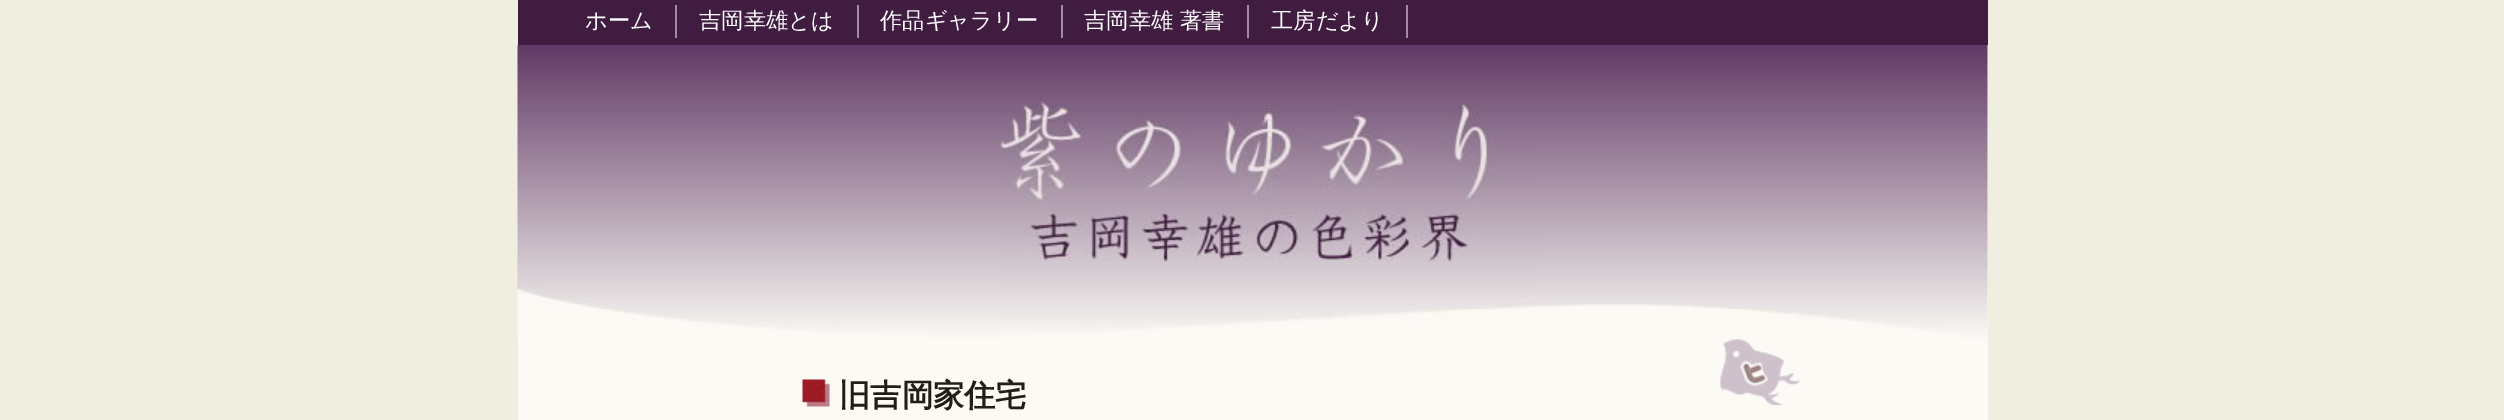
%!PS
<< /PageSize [2504 420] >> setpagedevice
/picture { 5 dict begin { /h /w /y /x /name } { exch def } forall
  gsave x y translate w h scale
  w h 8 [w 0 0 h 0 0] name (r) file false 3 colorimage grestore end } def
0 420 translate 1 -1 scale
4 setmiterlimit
0.941 0.933 0.882 setrgbcolor
0 0 2504 420 rectfill
0.251 0.11 0.255 setrgbcolor
518 0 1470 45 rectfill
0.635 0.541 0.647 setrgbcolor
675 5 2 33 rectfill
/WenQuanYiZenHei-Medium [22.25 0 0 -22.25 0 0] selectfont
1 setgray
585 28 moveto (ホーム) show
0.635 0.541 0.647 setrgbcolor
857 5 2 33 rectfill
1 setgray
699 28 moveto (吉岡幸雄とは) show
0.635 0.541 0.647 setrgbcolor
1061 5 2 33 rectfill
1 setgray
880 28 moveto (作品ギャラリー) show
0.635 0.541 0.647 setrgbcolor
1247 5 2 33 rectfill
1 setgray
1084 28 moveto (吉岡幸雄 著書) show
0.635 0.541 0.647 setrgbcolor
1406 5 2 33 rectfill
1 setgray
1271 28 moveto (工房だより) show
0.984 0.98 0.961 setrgbcolor
1987 45 1 294 rectfill
(img1.rgb) 517 45 1471 294 picture
(img2.rgb) 1000 93 540 228 picture
518 339 1470 81 rectfill
(img3.rgb) 802 379 28 28 picture
/WenQuanYiZenHei-Bold [31.25 0 0 -31.25 0 0] selectfont
0.129 0.114 0.094 setrgbcolor
839 406 moveto (旧吉岡家住宅) show
(img4.rgb) 1720 339 80 66 picture
showpage
